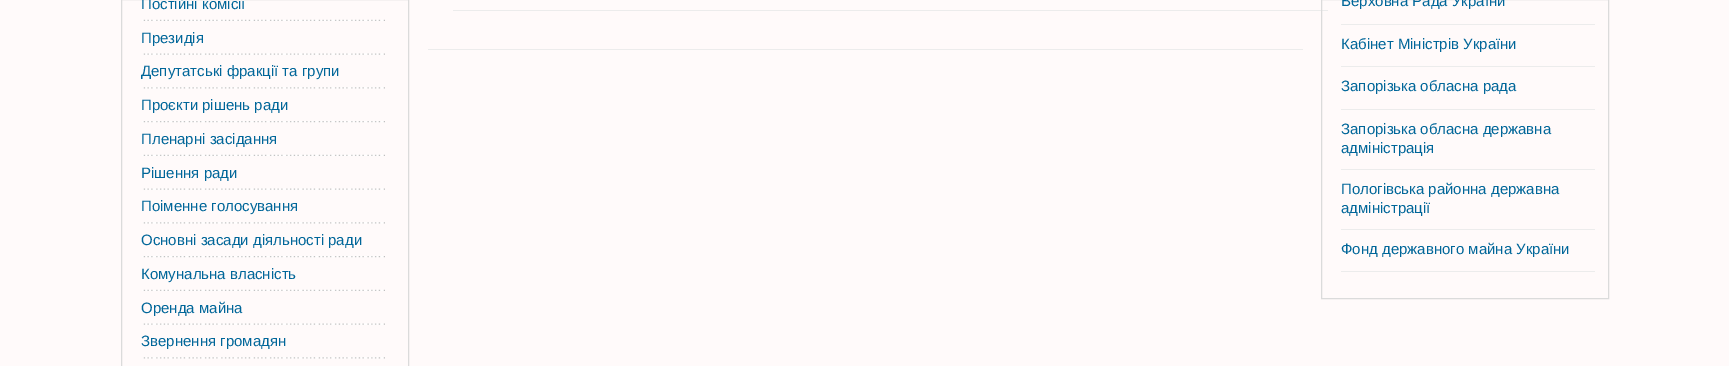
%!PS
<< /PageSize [1729 366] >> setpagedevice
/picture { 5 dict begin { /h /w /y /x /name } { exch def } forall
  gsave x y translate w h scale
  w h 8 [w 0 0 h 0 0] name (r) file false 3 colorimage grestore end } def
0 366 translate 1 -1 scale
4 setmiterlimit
1 0.98 0.98 setrgbcolor
0 0 1729 366 rectfill
0.859 setgray
121.5 -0.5 287 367 rectstroke
(img1.rgb) 142 19 243 2 picture
/LiberationSans-Regular [15 0 0 -15 0 0] selectfont
0 0.4 0.6 setrgbcolor
141 9 moveto (Постiйнi комiсiї) show
(img2.rgb) 143 53 242 2 picture
141 43 moveto (Президія) show
(img3.rgb) 143 87 242 2 picture
141 76 moveto (Депутатські фракції та групи) show
(img4.rgb) 142 121 243 2 picture
141 110 moveto (Проєкти рішень ради) show
(img1.rgb) 142 154 243 2 picture
141 144 moveto (Пленарні засідання) show
(img2.rgb) 143 188 242 2 picture
141 178 moveto (Рішення ради) show
(img3.rgb) 143 222 242 2 picture
141 211 moveto (Поіменне голосування) show
(img4.rgb) 142 256 243 2 picture
141 245 moveto (Основні засади діяльності ради) show
(img1.rgb) 142 289 243 2 picture
141 279 moveto (Комунальна власність) show
(img2.rgb) 143 323 242 2 picture
141 313 moveto (Оренда майна) show
(img3.rgb) 143 357 242 2 picture
141 346 moveto (Звернення громадян) show
0.925 setgray
428 49 875 1 rectfill
453 10 875 1 rectfill
0.859 setgray
1321.5 -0.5 287 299 rectstroke
0.925 setgray
1341 24 254 1 rectfill
0 0.4 0.6 setrgbcolor
1341 6 moveto (Верховна Рада України) show
0.925 setgray
1341 66 254 1 rectfill
0 0.4 0.6 setrgbcolor
1341 49 moveto (Кабінет Міністрів України) show
0.925 setgray
1341 109 254 1 rectfill
0 0.4 0.6 setrgbcolor
1341 91 moveto (Запорізька обласна рада) show
0.925 setgray
1341 169 254 1 rectfill
0 0.4 0.6 setrgbcolor
1341 134 moveto (Запорізька обласна державна) show
1341 153 moveto (адміністрація) show
0.925 setgray
1341 229 254 1 rectfill
0 0.4 0.6 setrgbcolor
1341 194 moveto (Пологівська районна державна) show
1341 213 moveto (адміністрації) show
0.925 setgray
1341 271 254 1 rectfill
0 0.4 0.6 setrgbcolor
1341 254 moveto (Фонд державного майна України) show
showpage
